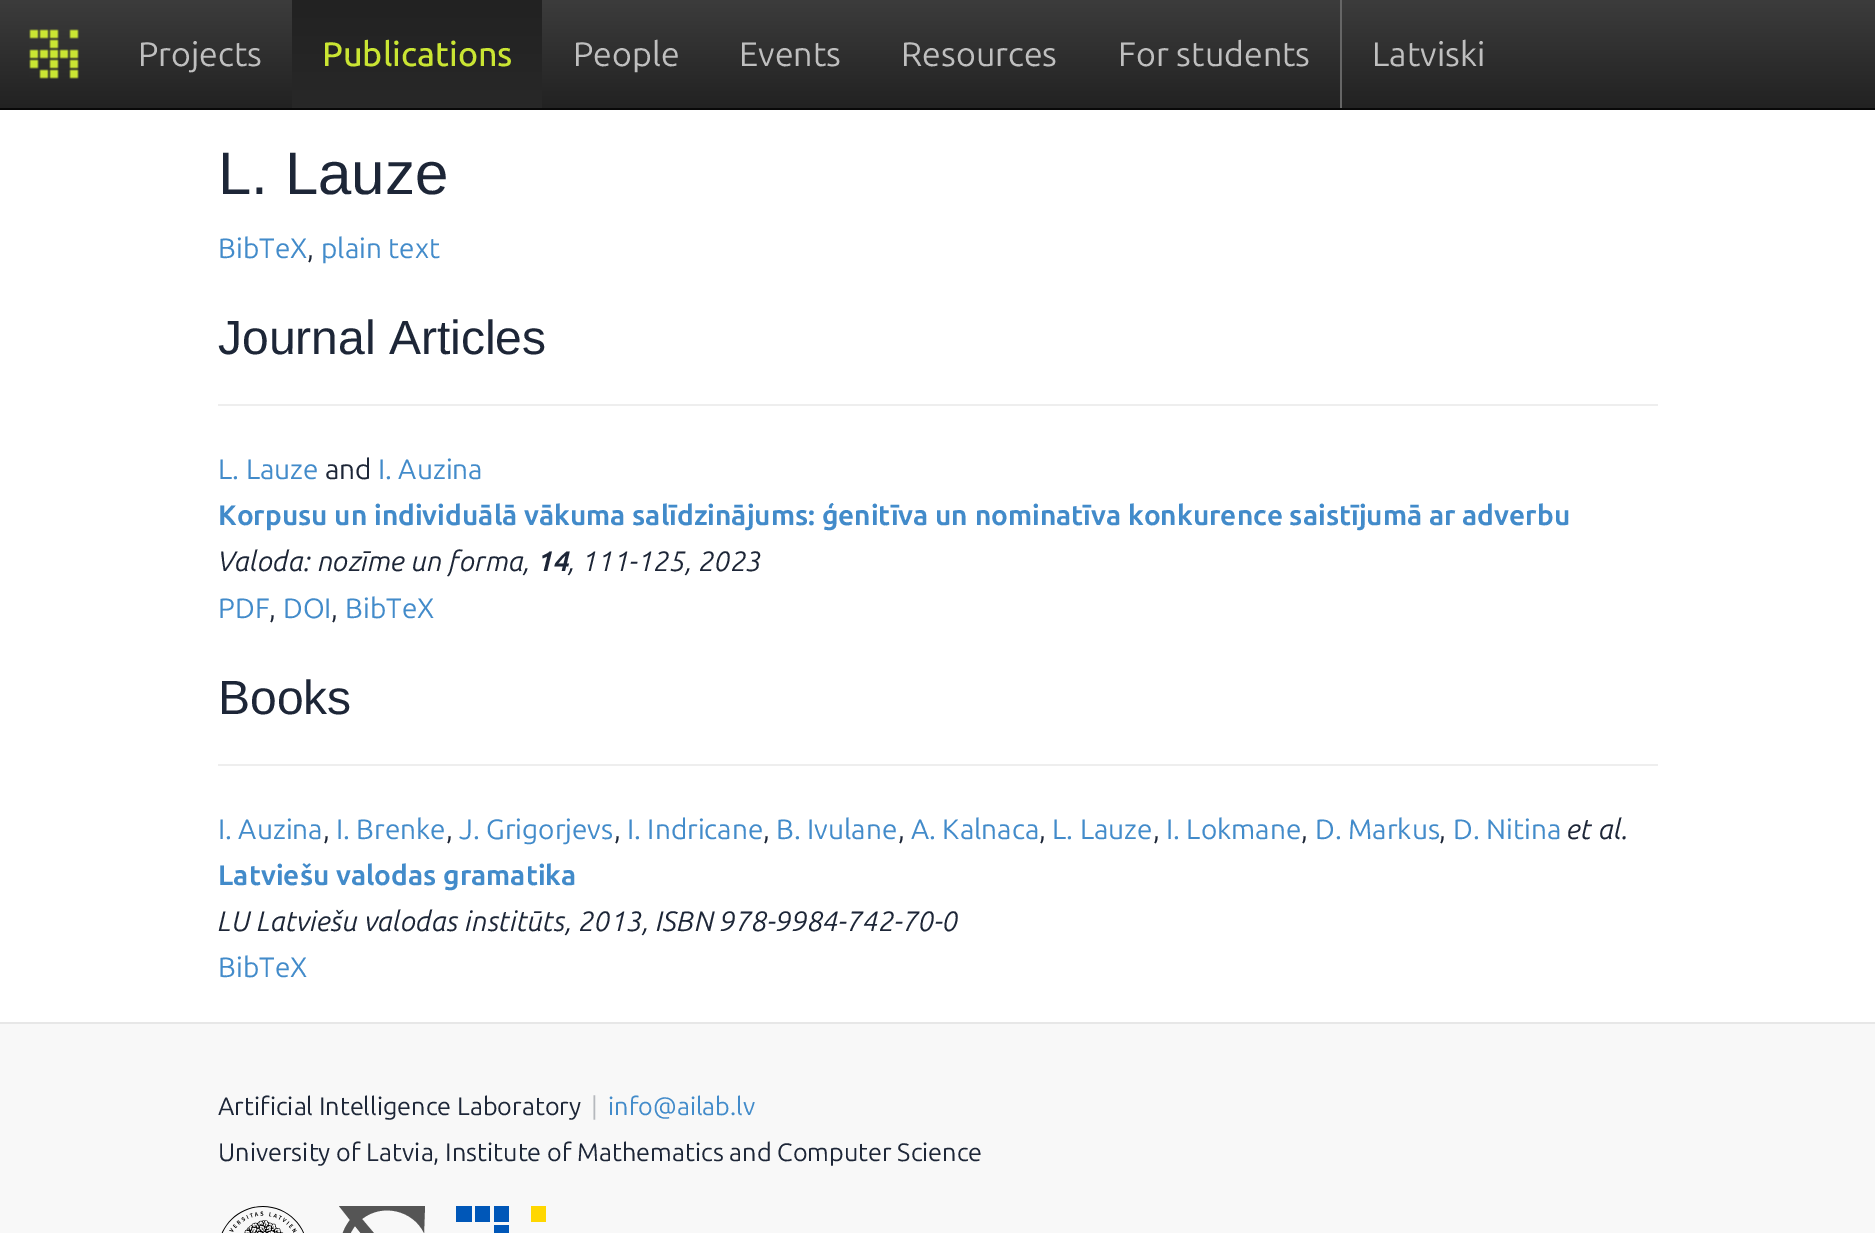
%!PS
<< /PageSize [1875 1233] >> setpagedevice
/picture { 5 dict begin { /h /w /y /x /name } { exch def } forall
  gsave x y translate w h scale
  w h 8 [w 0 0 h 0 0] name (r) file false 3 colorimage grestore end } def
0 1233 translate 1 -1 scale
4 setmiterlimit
1 setgray
0 0 1875 1233 rectfill
gsave newpath 0 0 moveto 1875 0 lineto 1875 108 lineto 0 108 lineto closepath clip newpath
<< /ShadingType 2 /ColorSpace /DeviceRGB /Coords [938 0 938 108] /Extend [true true] /Function << /FunctionType 2 /Domain [0 1] /C0 [0.235 0.235 0.235] /C1 [0.133 0.133 0.133] /N 1 >> >> shfill grestore
0.031 setgray
0 108 1875 2 rectfill
(img1.rgb) 29 29 50 50 picture
/Ubuntu-Regular [34 0 0 -34 0 0] selectfont
0.749 setgray
138 66 moveto (Projects) show
gsave newpath 292 0 moveto 542 0 lineto 542 108 lineto 292 108 lineto closepath clip newpath
<< /ShadingType 2 /ColorSpace /DeviceRGB /Coords [417 0 417 108] /Extend [true true] /Function << /FunctionType 2 /Domain [0 1] /C0 [0.133 0.133 0.133] /C1 [0.157 0.157 0.157] /N 1 >> >> shfill grestore
/Ubuntu-Medium [34 0 0 -34 0 0] selectfont
0.792 0.898 0.2 setrgbcolor
322 66 moveto (Publications) show
/Ubuntu-Regular [34 0 0 -34 0 0] selectfont
0.749 setgray
573 66 moveto (People) show
739 66 moveto (Events) show
901 66 moveto (Resources) show
1118 66 moveto (For students) show
0.4 setgray
1340 0 2 108 rectfill
0.749 setgray
1372 66 moveto (Latviski) show
/LiberationSans-Regular [60 0 0 -60 0 0] selectfont
0.114 0.149 0.216 setrgbcolor
218 194 moveto (L. Lauze) show
/Ubuntu-Regular [28 0 0 -28 0 0] selectfont
0.259 0.545 0.792 setrgbcolor
218 258 moveto (BibTeX) show
0.114 0.149 0.216 setrgbcolor
307 258 moveto (,) show
0.259 0.545 0.792 setrgbcolor
321 258 moveto (plain text) show
/LiberationSans-Regular [48 0 0 -48 0 0] selectfont
0.114 0.149 0.216 setrgbcolor
218 354 moveto (Journal Articles) show
0.933 setgray
218 404 1440 2 rectfill
/Ubuntu-Regular [28 0 0 -28 0 0] selectfont
0.259 0.545 0.792 setrgbcolor
218 479 moveto (L. Lauze) show
0.114 0.149 0.216 setrgbcolor
325 479 moveto (and) show
0.259 0.545 0.792 setrgbcolor
378 479 moveto (I. Auzina) show
/Ubuntu-Bold [28 0 0 -28 0 0] selectfont
218 525 moveto (Korpusu un individuālā vākuma salīdzinājums: ģenitīva un nominatīva konkurence saistījumā ar adverbu) show
/Ubuntu-Italic [28 0 0 -28 0 0] selectfont
0.114 0.149 0.216 setrgbcolor
218 571 moveto (Valoda: nozīme un forma,) show
/Ubuntu-BoldItalic [28 0 0 -28 0 0] selectfont
538 571 moveto (14) show
/Ubuntu-Italic [28 0 0 -28 0 0] selectfont
569 571 moveto (, 111-125, 2023) show
/Ubuntu-Regular [28 0 0 -28 0 0] selectfont
0.259 0.545 0.792 setrgbcolor
218 618 moveto (PDF) show
0.114 0.149 0.216 setrgbcolor
269 618 moveto (,) show
0.259 0.545 0.792 setrgbcolor
283 618 moveto (DOI) show
0.114 0.149 0.216 setrgbcolor
331 618 moveto (,) show
0.259 0.545 0.792 setrgbcolor
345 618 moveto (BibTeX) show
/LiberationSans-Regular [48 0 0 -48 0 0] selectfont
0.114 0.149 0.216 setrgbcolor
218 714 moveto (Books) show
0.933 setgray
218 764 1440 2 rectfill
/Ubuntu-Regular [28 0 0 -28 0 0] selectfont
0.259 0.545 0.792 setrgbcolor
218 839 moveto (I. Auzina) show
0.114 0.149 0.216 setrgbcolor
323 839 moveto (,) show
0.259 0.545 0.792 setrgbcolor
336 839 moveto (I. Brenke) show
0.114 0.149 0.216 setrgbcolor
446 839 moveto (,) show
0.259 0.545 0.792 setrgbcolor
459 839 moveto (J. Grigorjevs) show
0.114 0.149 0.216 setrgbcolor
614 839 moveto (,) show
0.259 0.545 0.792 setrgbcolor
627 839 moveto (I. Indricane) show
0.114 0.149 0.216 setrgbcolor
763 839 moveto (,) show
0.259 0.545 0.792 setrgbcolor
776 839 moveto (B. Ivulane) show
0.114 0.149 0.216 setrgbcolor
898 839 moveto (,) show
0.259 0.545 0.792 setrgbcolor
911 839 moveto (A. Kalnaca) show
0.114 0.149 0.216 setrgbcolor
1039 839 moveto (,) show
0.259 0.545 0.792 setrgbcolor
1052 839 moveto (L. Lauze) show
0.114 0.149 0.216 setrgbcolor
1153 839 moveto (,) show
0.259 0.545 0.792 setrgbcolor
1166 839 moveto (I. Lokmane) show
0.114 0.149 0.216 setrgbcolor
1301 839 moveto (,) show
0.259 0.545 0.792 setrgbcolor
1315 839 moveto (D. Markus) show
0.114 0.149 0.216 setrgbcolor
1439 839 moveto (,) show
0.259 0.545 0.792 setrgbcolor
1453 839 moveto (D. Nitina) show
/Ubuntu-Italic [28 0 0 -28 0 0] selectfont
0.114 0.149 0.216 setrgbcolor
1567 839 moveto (et al.) show
/Ubuntu-Bold [28 0 0 -28 0 0] selectfont
0.259 0.545 0.792 setrgbcolor
218 885 moveto (Latviešu valodas gramatika) show
/Ubuntu-Italic [28 0 0 -28 0 0] selectfont
0.114 0.149 0.216 setrgbcolor
218 931 moveto (LU Latviešu valodas institūts, 2013, ISBN 978-9984-742-70-0) show
/Ubuntu-Regular [28 0 0 -28 0 0] selectfont
0.259 0.545 0.792 setrgbcolor
218 977 moveto (BibTeX) show
0.973 setgray
0 1024 1875 209 rectfill
0.906 setgray
0 1022 1875 2 rectfill
/Ubuntu-Regular [25.2 0 0 -25.2 0 0] selectfont
0.114 0.149 0.216 setrgbcolor
218 1115 moveto (Artificial Intelligence Laboratory) show
0.714 0.725 0.745 setrgbcolor
591 1115 moveto (|) show
0.259 0.545 0.792 setrgbcolor
608 1115 moveto (info@ailab.lv) show
0.114 0.149 0.216 setrgbcolor
218 1161 moveto (University of Latvia, Institute of Mathematics and Computer Science) show
(img2.rgb) 221 1206 83 27 picture
0.333 setgray
newpath 375 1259 moveto 385 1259 385 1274 375 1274 curveto 365 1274 365 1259 375 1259 curveto closepath 355 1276 moveto 375 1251 lineto 355 1226 lineto 344 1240 344 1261 355 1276 curveto closepath 419 1206 moveto 425 1206 lineto 424 1233 lineto 413 1210 382 1203 362 1219 curveto 389 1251 lineto 361 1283 lineto 382 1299 413 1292 424 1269 curveto 425 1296 lineto 337 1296 lineto 350 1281 lineto 336 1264 336 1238 350 1220 curveto 339 1206 lineto 419 1206 lineto eofill
0 0.341 0.722 setrgbcolor
456 1206 16 16 rectfill
475 1206 15 16 rectfill
494 1206 15 16 rectfill
1 0.843 0 setrgbcolor
531 1206 15 16 rectfill
0 0.341 0.722 setrgbcolor
494 1225 15 8 rectfill
showpage
